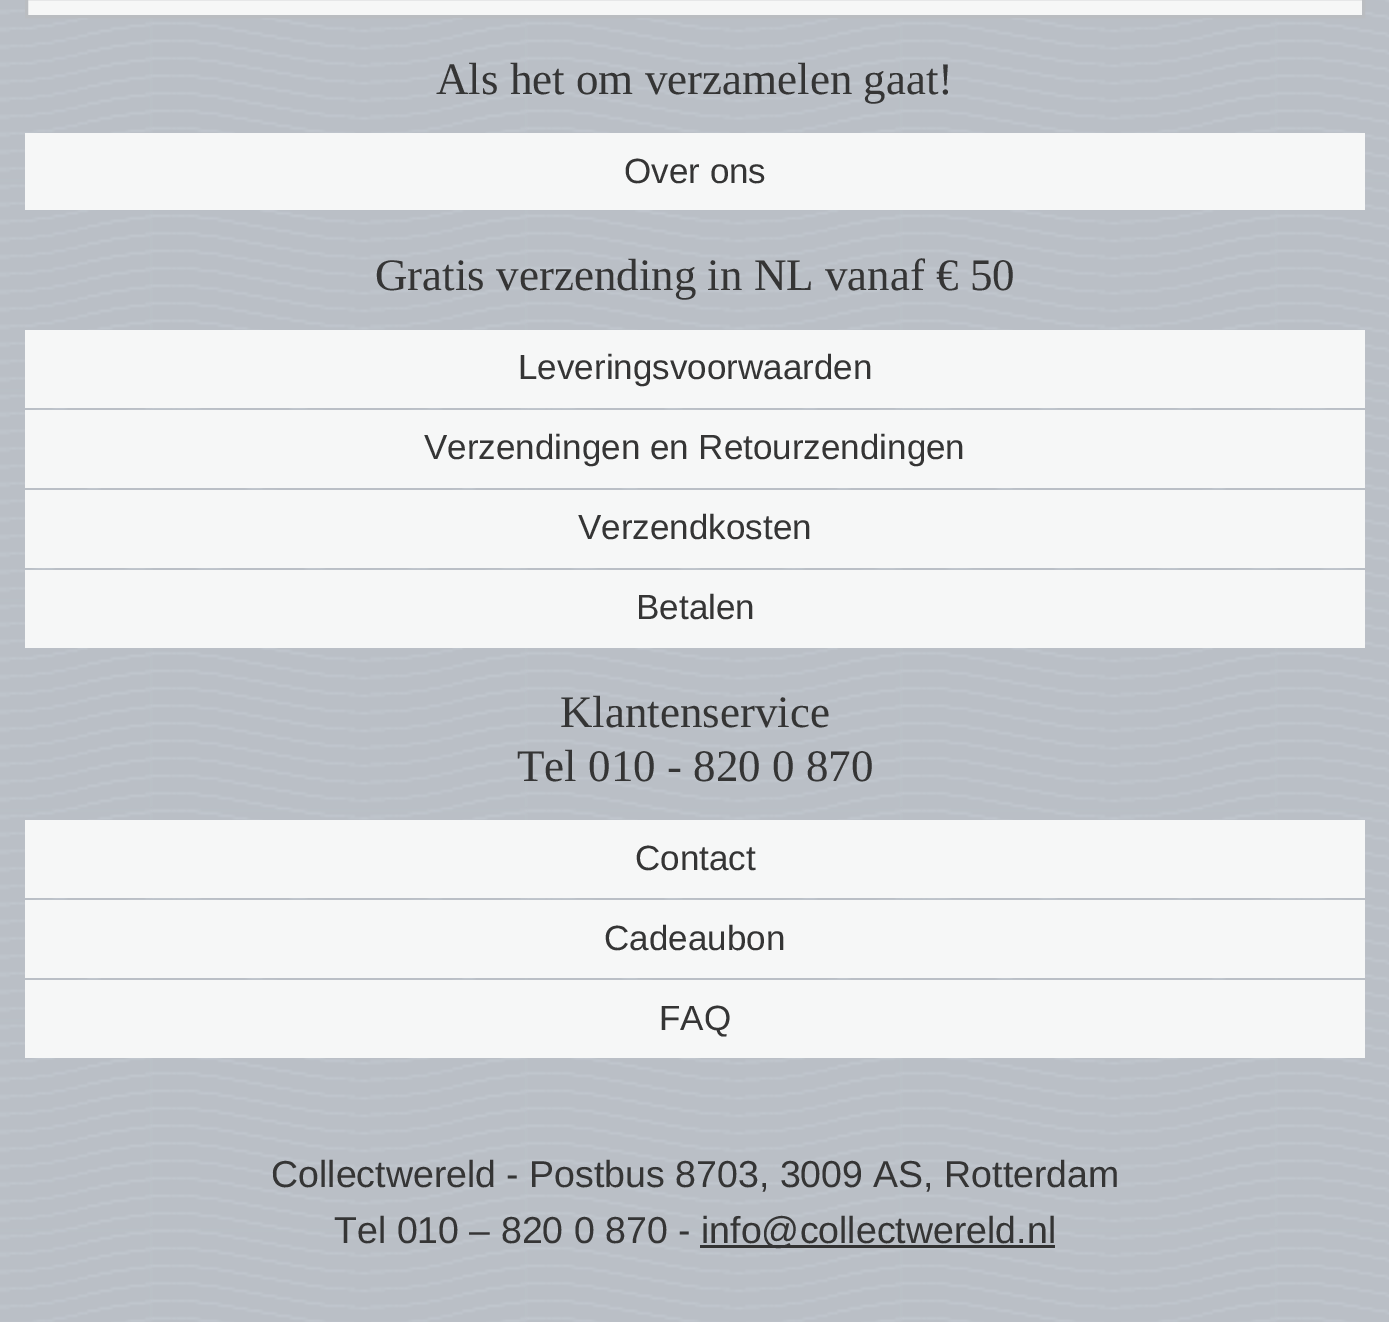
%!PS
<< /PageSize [1389 1322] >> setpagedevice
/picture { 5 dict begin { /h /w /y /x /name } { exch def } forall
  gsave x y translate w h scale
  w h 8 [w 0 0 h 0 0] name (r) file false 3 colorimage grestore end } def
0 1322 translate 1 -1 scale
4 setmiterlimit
1 setgray
0 0 1389 1322 rectfill
(img1.rgb) 0 0 1389 1322 picture
0.965 0.969 0.969 setrgbcolor
newpath 26.5 -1.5 moveto 1363.5 -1.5 lineto 1363.5 16.5 lineto 26.5 16.5 lineto closepath gsave fill grestore
0.729 0.741 0.757 setrgbcolor
3 setlinewidth
stroke
/LiberationSerif-Regular [45 0 0 -45 0 0] selectfont
0.208 setgray
436 94 moveto (Als het om verzamelen gaat!) show
0.965 0.969 0.969 setrgbcolor
25 133 1340 77 rectfill
/LiberationSans-Regular [35 0 0 -35 0 0] selectfont
0.208 setgray
624 183 moveto (Over ons) show
/LiberationSerif-Regular [45 0 0 -45 0 0] selectfont
375 290 moveto (Gratis verzending in NL vanaf € 50) show
0.965 0.969 0.969 setrgbcolor
25 330 1340 78 rectfill
/LiberationSans-Regular [35 0 0 -35 0 0] selectfont
0.208 setgray
518 379 moveto (Leveringsvoorwaarden) show
0.965 0.969 0.969 setrgbcolor
25 410 1340 78 rectfill
0.208 setgray
424 459 moveto (Verzendingen en Retourzendingen) show
0.965 0.969 0.969 setrgbcolor
25 490 1340 78 rectfill
0.208 setgray
578 539 moveto (Verzendkosten) show
0.965 0.969 0.969 setrgbcolor
25 570 1340 78 rectfill
0.208 setgray
636 619 moveto (Betalen) show
/LiberationSerif-Regular [45 0 0 -45 0 0] selectfont
560 727 moveto (Klantenservice) show
517 781 moveto (Tel 010 - 820 0 870) show
0.965 0.969 0.969 setrgbcolor
25 820 1340 78 rectfill
/LiberationSans-Regular [35 0 0 -35 0 0] selectfont
0.208 setgray
635 870 moveto (Contact) show
0.965 0.969 0.969 setrgbcolor
25 900 1340 78 rectfill
0.208 setgray
604 950 moveto (Cadeaubon) show
0.965 0.969 0.969 setrgbcolor
25 980 1340 78 rectfill
0.208 setgray
659 1030 moveto (FAQ) show
/LiberationSans-Regular [37.5 0 0 -37.5 0 0] selectfont
271 1187 moveto (Collectwereld - Postbus 8703, 3009 AS, Rotterdam) show
334 1243 moveto (Tel 010 – 820 0 870 -) show
0.2 setgray
700 1245 355 3 rectfill
0.208 setgray
701 1243 moveto (info@collectwereld.nl) show
showpage
